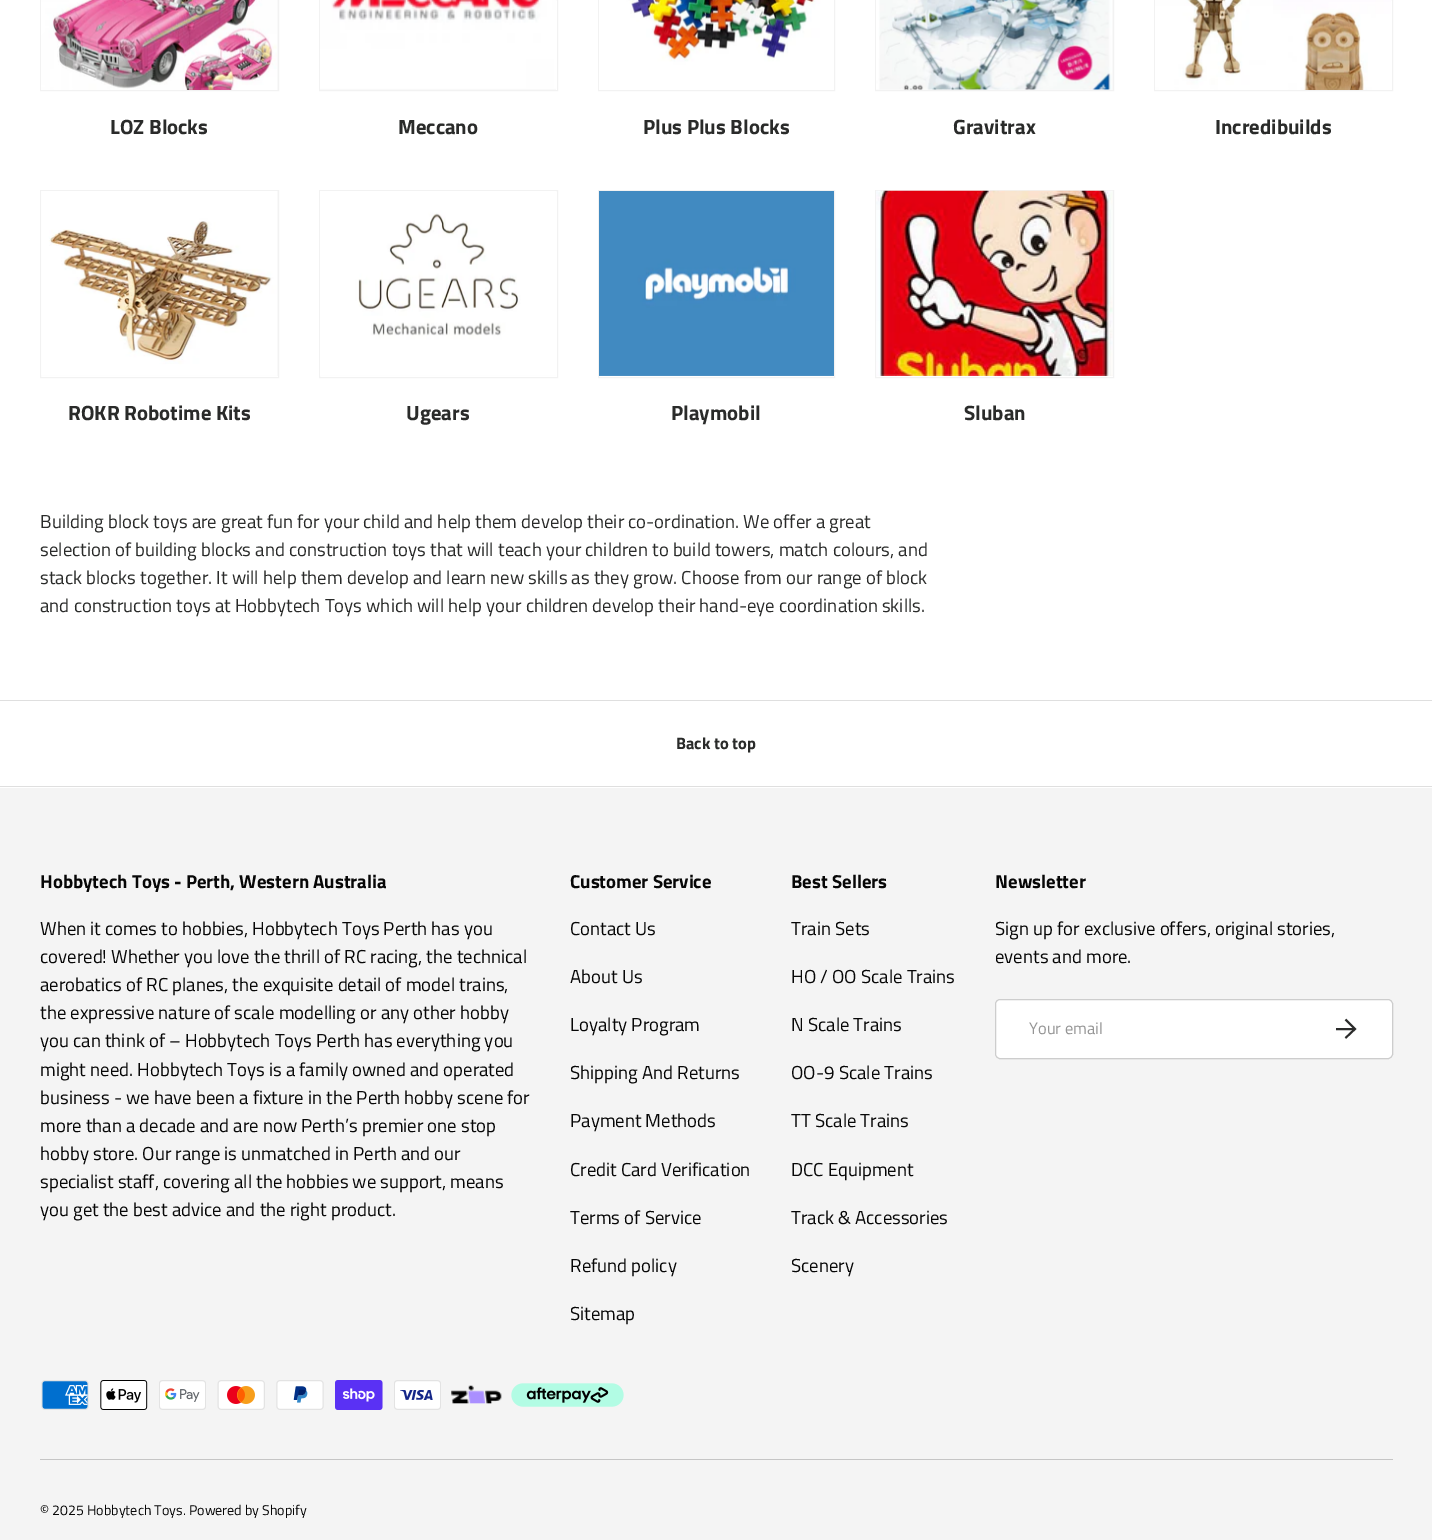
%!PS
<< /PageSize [1432 1540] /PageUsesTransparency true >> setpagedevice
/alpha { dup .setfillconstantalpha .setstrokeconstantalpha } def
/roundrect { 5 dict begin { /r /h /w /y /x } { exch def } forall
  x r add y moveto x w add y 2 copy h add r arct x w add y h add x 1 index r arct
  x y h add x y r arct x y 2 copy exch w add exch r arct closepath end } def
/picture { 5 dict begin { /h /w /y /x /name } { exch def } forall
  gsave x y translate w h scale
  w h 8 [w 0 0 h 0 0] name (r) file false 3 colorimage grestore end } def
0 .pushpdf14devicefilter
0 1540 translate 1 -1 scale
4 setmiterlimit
1 setgray
0 0 1432 1540 rectfill
0.949 setgray
40.5 -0.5 238 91 rectstroke
0.976 setgray
41 0 237 90 rectfill
(img1.rgb) 41 0 236 90 picture
/TitilliumWeb-Bold [20.75 0 0 -20.75 0 0] selectfont
0.165 0.169 0.165 setrgbcolor
110 134 moveto (LOZ Blocks) show
0.949 setgray
319.5 -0.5 238 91 rectstroke
0.976 setgray
320 88 236 2 rectfill
(img2.rgb) 320 0 236 89 picture
0.165 0.169 0.165 setrgbcolor
398 134 moveto (Meccano) show
0.949 setgray
598.5 -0.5 236 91 rectstroke
(img3.rgb) 599 0 235 90 picture
0.165 0.169 0.165 setrgbcolor
643 134 moveto (Plus Plus Blocks) show
0.949 setgray
875.5 -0.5 238 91 rectstroke
0.976 setgray
876 0 237 90 rectfill
(img4.rgb) 876 0 236 90 picture
0.165 0.169 0.165 setrgbcolor
953 134 moveto (Gravitrax) show
0.949 setgray
1154.5 -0.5 238 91 rectstroke
(img5.rgb) 1155 0 236 90 picture
0.165 0.169 0.165 setrgbcolor
1215 134 moveto (Incredibuilds) show
0.949 setgray
40.5 190.5 238 187 rectstroke
0.976 setgray
41 191 237 185 rectfill
(img6.rgb) 41 191 236 185 picture
0.165 0.169 0.165 setrgbcolor
68 420 moveto (ROKR Robotime Kits) show
0.949 setgray
319.5 190.5 238 187 rectstroke
(img7.rgb) 320 191 236 185 picture
0.165 0.169 0.165 setrgbcolor
406 420 moveto (Ugears) show
0.949 setgray
598.5 190.5 236 187 rectstroke
(img8.rgb) 599 191 235 185 picture
0.165 0.169 0.165 setrgbcolor
671 420 moveto (Playmobil) show
0.949 setgray
875.5 190.5 238 187 rectstroke
0.976 setgray
876 191 237 185 rectfill
(img9.rgb) 876 190 237 186 picture
0.165 0.169 0.165 setrgbcolor
964 420 moveto (Sluban) show
/TitilliumWeb-Regular [18.75 0 0 -18.75 0 0] selectfont
40 528 moveto (Building block toys are great fun for your child and help them develop their co-ordination. We offer a great) show
40 556 moveto (selection of building blocks and construction toys that will teach your children to build towers, match colours, and) show
40 584 moveto (stack blocks together. It will help them develop and learn new skills as they grow. Choose from our range of block) show
40 612 moveto (and construction toys at Hobbytech Toys which will help your children develop their hand-eye coordination skills.) show
0.875 setgray
0 700 1432 1 rectfill
0 786 1432 1 rectfill
/TitilliumWeb-Bold [16.5 0 0 -16.5 0 0] selectfont
0.165 0.169 0.165 setrgbcolor
676 749 moveto (Back to top) show
0.957 setgray
0 788 1432 752 rectfill
/TitilliumWeb-Bold [18.75 0 0 -18.75 0 0] selectfont
0.027 setgray
40 888 moveto (Hobbytech Toys - Perth, Western Australia) show
/TitilliumWeb-Regular [18.75 0 0 -18.75 0 0] selectfont
40 935 moveto (When it comes to hobbies, Hobbytech Toys Perth has you) show
40 963 moveto (covered! Whether you love the thrill of RC racing, the technical) show
40 991 moveto (aerobatics of RC planes, the exquisite detail of model trains,) show
40 1019 moveto (the expressive nature of scale modelling or any other hobby) show
40 1047 moveto (you can think of – Hobbytech Toys Perth has everything you) show
40 1076 moveto (might need. Hobbytech Toys is a family owned and operated) show
40 1104 moveto (business - we have been a fixture in the Perth hobby scene for) show
40 1132 moveto (more than a decade and are now Perth’s premier one stop) show
40 1160 moveto (hobby store. Our range is unmatched in Perth and our) show
40 1188 moveto (specialist staff, covering all the hobbies we support, means) show
40 1216 moveto (you get the best advice and the right product.) show
/TitilliumWeb-Bold [18.75 0 0 -18.75 0 0] selectfont
570 888 moveto (Customer Service) show
/TitilliumWeb-Regular [18.75 0 0 -18.75 0 0] selectfont
570 935 moveto (Contact Us) show
570 983 moveto (About Us) show
570 1031 moveto (Loyalty Program) show
570 1079 moveto (Shipping And Returns) show
570 1127 moveto (Payment Methods) show
570 1176 moveto (Credit Card Verification) show
570 1224 moveto (Terms of Service) show
570 1272 moveto (Refund policy) show
570 1320 moveto (Sitemap) show
/TitilliumWeb-Bold [18.75 0 0 -18.75 0 0] selectfont
791 888 moveto (Best Sellers) show
/TitilliumWeb-Regular [18.75 0 0 -18.75 0 0] selectfont
791 935 moveto (Train Sets) show
791 983 moveto (HO / OO Scale Trains) show
791 1031 moveto (N Scale Trains) show
791 1079 moveto (OO-9 Scale Trains) show
791 1127 moveto (TT Scale Trains) show
791 1176 moveto (DCC Equipment) show
791 1224 moveto (Track & Accessories) show
791 1272 moveto (Scenery) show
/TitilliumWeb-Bold [18.75 0 0 -18.75 0 0] selectfont
995 888 moveto (Newsletter) show
/TitilliumWeb-Regular [18.75 0 0 -18.75 0 0] selectfont
995 935 moveto (Sign up for exclusive offers, original stories,) show
995 963 moveto (events and more.) show
1 setgray
995 999 398 60 5 roundrect fill
0.2 alpha
0.027 setgray
995.5 999.5 397 59 4.5 roundrect stroke
/TitilliumWeb-Regular [16.5 0 0 -16.5 0 0] selectfont
1 alpha
0.584 setgray
1029 1034 moveto (Your email) show
0.165 0.169 0.165 setrgbcolor
1.9 setlinewidth
newpath 1336 1029 moveto 1354 1029 lineto 1345.5 1019.5 moveto 1355 1029 lineto 1345.5 1038 lineto stroke
(img10.rgb) 41 1380 48 30 picture
(img11.rgb) 100 1380 48 30 picture
(img12.rgb) 159 1380 47 30 picture
(img13.rgb) 217 1380 48 30 picture
(img14.rgb) 276 1380 48 30 picture
(img15.rgb) 335 1380 48 30 picture
(img16.rgb) 394 1380 47 30 picture
(img17.rgb) 451 1385 51 19 picture
(img18.rgb) 511 1383 113 24 picture
0.773 setgray
40 1459 1353 1 rectfill
/TitilliumWeb-Regular [14.1 0 0 -14.1 0 0] selectfont
0.027 setgray
40 1515 moveto (© 2025 Hobbytech Toys. Powered by Shopify) show
.poppdf14devicefilter showpage
